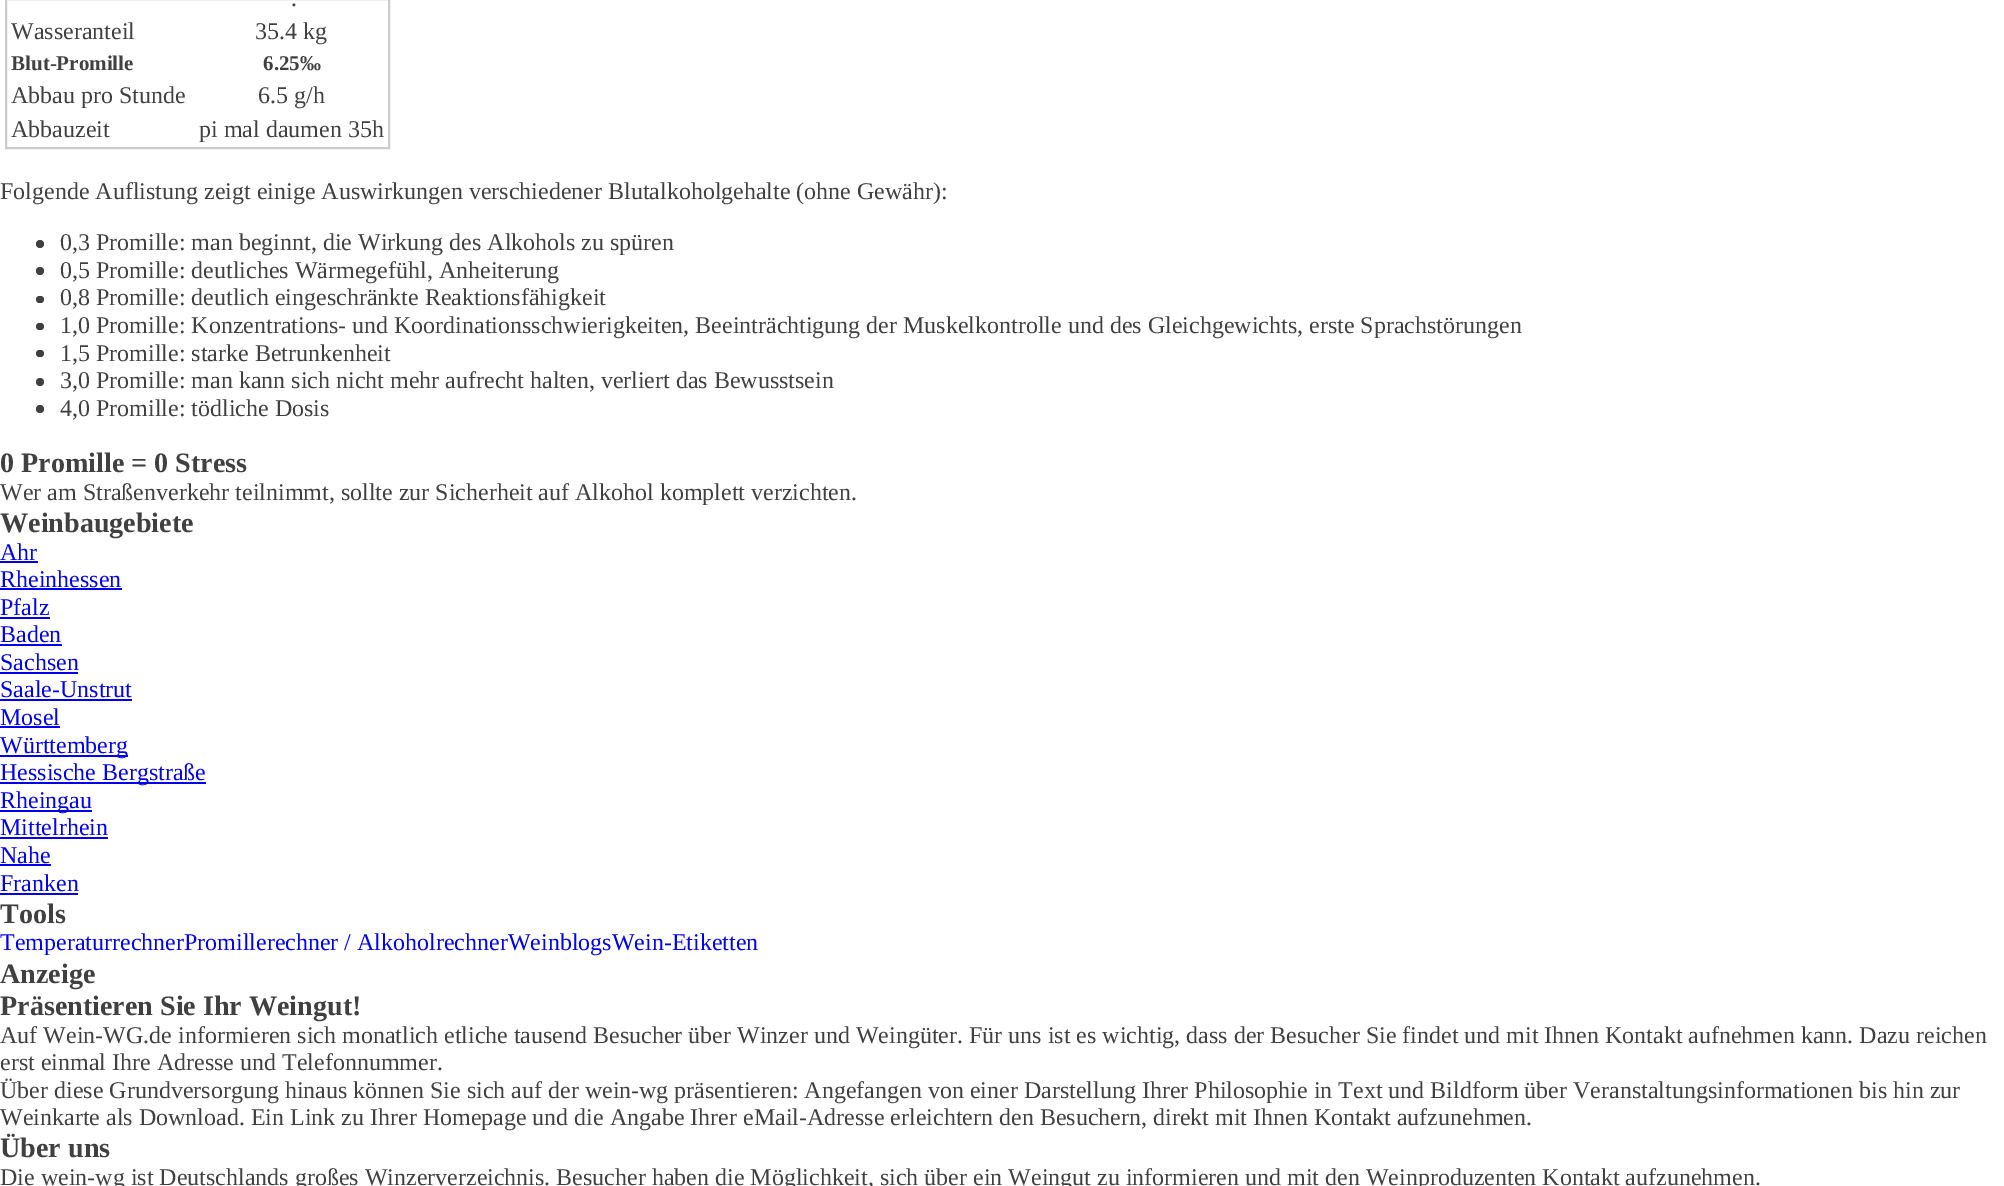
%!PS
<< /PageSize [2004 1186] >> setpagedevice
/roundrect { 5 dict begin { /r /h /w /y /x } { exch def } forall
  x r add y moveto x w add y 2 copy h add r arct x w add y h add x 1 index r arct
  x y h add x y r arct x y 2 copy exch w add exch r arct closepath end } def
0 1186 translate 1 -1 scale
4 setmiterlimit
1 setgray
0 0 2004 1186 rectfill
0.8 setgray
2 setlinewidth
6 -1 383 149 rectstroke
/LiberationSerif-Regular [24 0 0 -24 0 0] selectfont
0.251 setgray
291 6 moveto (.) show
11 39 moveto (Wasseranteil) show
255 39 moveto (35.4 kg) show
/LiberationSerif-Bold [21 0 0 -21 0 0] selectfont
11 70 moveto (Blut-Promille) show
263 70 moveto (6.25‰) show
/LiberationSerif-Regular [24 0 0 -24 0 0] selectfont
11 103 moveto (Abbau pro Stunde) show
258 103 moveto (6.5 g/h) show
11 137 moveto (Abbauzeit) show
199 137 moveto (pi mal daumen 35h) show
0 199 moveto (Folgende Auflistung zeigt einige Auswirkungen verschiedener Blutalkoholgehalte \(ohne Gewähr\):) show
newpath 40 244 4 0 360 arc closepath fill
60 250 moveto (0,3 Promille: man beginnt, die Wirkung des Alkohols zu spüren) show
newpath 40 271 4 0 360 arc closepath fill
60 278 moveto (0,5 Promille: deutliches Wärmegefühl, Anheiterung) show
36 296 8 7 3.5 roundrect fill
60 305 moveto (0,8 Promille: deutlich eingeschränkte Reaktionsfähigkeit) show
36 323 8 7 3.5 roundrect fill
60 333 moveto (1,0 Promille: Konzentrations- und Koordinationsschwierigkeiten, Beeinträchtigung der Muskelkontrolle und des Gleichgewichts, erste Sprachstörungen) show
36 350 8 7 3.5 roundrect fill
60 361 moveto (1,5 Promille: starke Betrunkenheit) show
newpath 40 382 4 0 360 arc closepath fill
60 388 moveto (3,0 Promille: man kann sich nicht mehr aufrecht halten, verliert das Bewusstsein) show
newpath 40 409 4 0 360 arc closepath fill
60 416 moveto (4,0 Promille: tödliche Dosis) show
/LiberationSerif-Bold [28.1 0 0 -28.1 0 0] selectfont
0 472 moveto (0 Promille = 0 Stress) show
/LiberationSerif-Regular [24 0 0 -24 0 0] selectfont
0 500 moveto (Wer am Straßenverkehr teilnimmt, sollte zur Sicherheit auf Alkohol komplett verzichten.) show
/LiberationSerif-Bold [28.1 0 0 -28.1 0 0] selectfont
0 532 moveto (Weinbaugebiete) show
/LiberationSerif-Regular [24 0 0 -24 0 0] selectfont
0 0 0.933 setrgbcolor
0 560 moveto (Ahr) show
0 561 38 2 rectfill
0 587 moveto (Rheinhessen) show
0 588 122 2 rectfill
0 615 moveto (Pfalz) show
0 617 50 2 rectfill
0 642 moveto (Baden) show
0 644 62 2 rectfill
0 670 moveto (Sachsen) show
0 672 78 2 rectfill
0 697 moveto (Saale-Unstrut) show
0 699 132 2 rectfill
0 725 moveto (Mosel) show
0 726 60 2 rectfill
0 755 128 2 rectfill
0 753 moveto (Württemberg) show
0 782 206 2 rectfill
0 780 moveto (Hessische Bergstraße) show
0 810 92 2 rectfill
0 808 moveto (Rheingau) show
0 835 moveto (Mittelrhein) show
0 837 108 2 rectfill
0 863 moveto (Nahe) show
0 864 51 2 rectfill
0 891 moveto (Franken) show
0 893 78 2 rectfill
/LiberationSerif-Bold [28.1 0 0 -28.1 0 0] selectfont
0.251 setgray
0 923 moveto (Tools) show
/LiberationSerif-Regular [24 0 0 -24 0 0] selectfont
0 0 0.933 setrgbcolor
0 950 moveto (TemperaturrechnerPromillerechner / AlkoholrechnerWeinblogsWein-Etiketten) show
/LiberationSerif-Bold [28.1 0 0 -28.1 0 0] selectfont
0.251 setgray
0 983 moveto (Anzeige) show
0 1015 moveto (Präsentieren Sie Ihr Weingut!) show
/LiberationSerif-Regular [24 0 0 -24 0 0] selectfont
0 1043 moveto (Auf Wein-WG.de informieren sich monatlich etliche tausend Besucher über Winzer und Weingüter. Für uns ist es wichtig, dass der Besucher Sie findet und mit Ihnen Kontakt aufnehmen kann. Dazu reichen) show
0 1070 moveto (erst einmal Ihre Adresse und Telefonnummer.) show
0 1098 moveto (Über diese Grundversorgung hinaus können Sie sich auf der wein-wg präsentieren: Angefangen von einer Darstellung Ihrer Philosophie in Text und Bildform über Veranstaltungsinformationen bis hin zur) show
0 1125 moveto (Weinkarte als Download. Ein Link zu Ihrer Homepage und die Angabe Ihrer eMail-Adresse erleichtern den Besuchern, direkt mit Ihnen Kontakt aufzunehmen.) show
/LiberationSerif-Bold [28.1 0 0 -28.1 0 0] selectfont
0 1157 moveto (Über uns) show
/LiberationSerif-Regular [24 0 0 -24 0 0] selectfont
0 1185 moveto (Die wein-wg ist Deutschlands großes Winzerverzeichnis. Besucher haben die Möglichkeit, sich über ein Weingut zu informieren und mit den Weinproduzenten Kontakt aufzunehmen.) show
showpage
